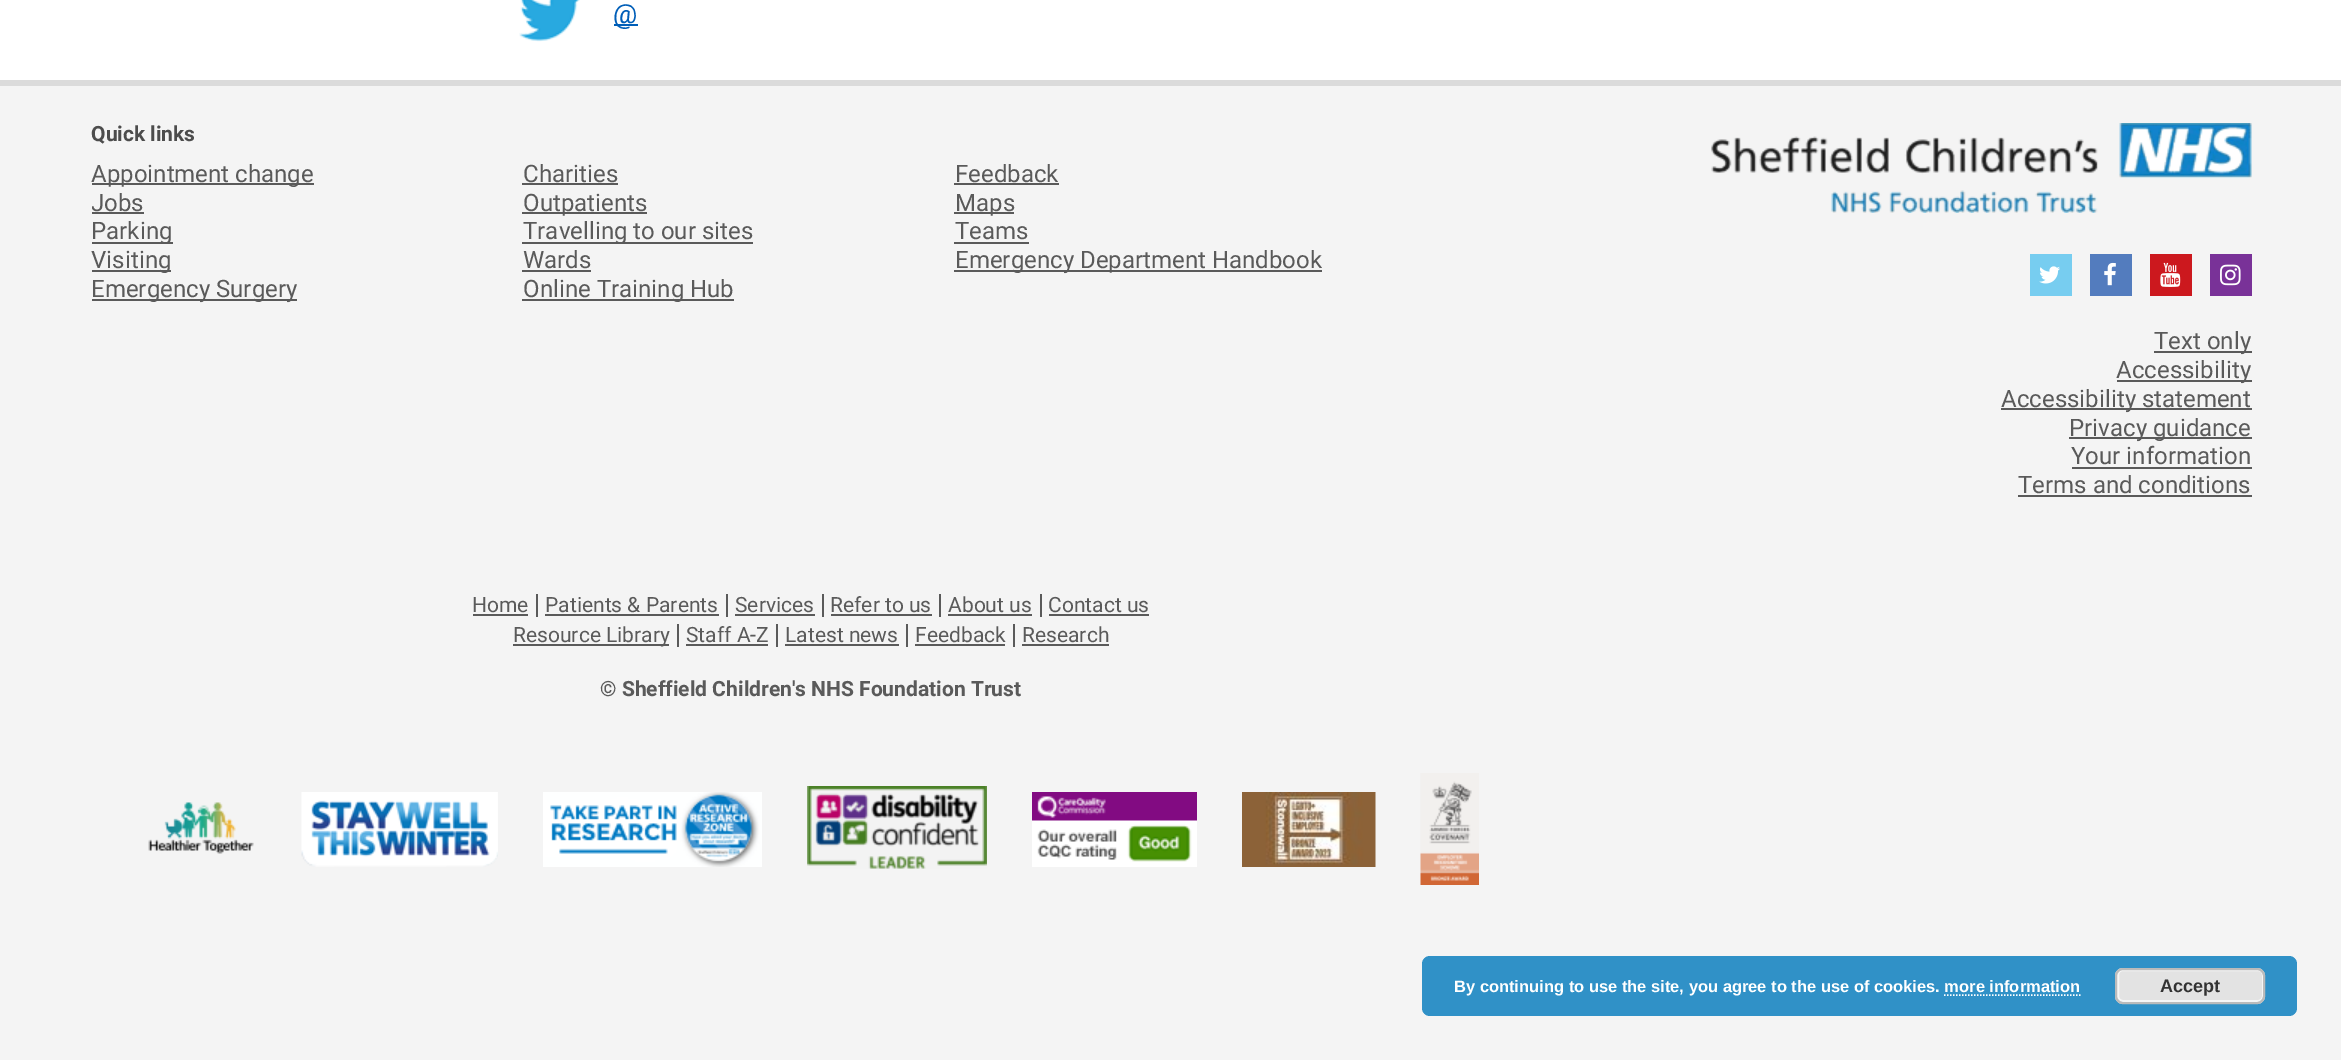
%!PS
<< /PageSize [2341 1060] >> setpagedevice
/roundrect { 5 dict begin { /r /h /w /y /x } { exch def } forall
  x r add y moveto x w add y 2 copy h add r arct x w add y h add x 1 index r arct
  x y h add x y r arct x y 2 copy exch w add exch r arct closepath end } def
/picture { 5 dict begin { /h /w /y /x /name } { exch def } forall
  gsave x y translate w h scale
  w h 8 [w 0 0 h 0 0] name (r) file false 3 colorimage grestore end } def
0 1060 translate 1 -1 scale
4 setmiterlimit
1 setgray
0 0 2341 1060 rectfill
(img1.rgb) 519 0 61 42 picture
0 0.369 0.722 setrgbcolor
614 24 24 2 rectfill
/Heebo-Regular [27 0 0 -27 0 0] selectfont
613 23 moveto (@) show
0.957 setgray
0 86 2341 974 rectfill
0.859 setgray
0 80 2341 6 rectfill
/Heebo-Bold [21 0 0 -21 0 0] selectfont
0.298 setgray
91 141 moveto (Quick links) show
0.353 setgray
92 183 222 2 rectfill
/Heebo-Regular [24 0 0 -24 0 0] selectfont
91 182 moveto (Appointment change) show
523 182 moveto (Charities) show
522 183 96 2 rectfill
955 182 moveto (Feedback) show
954 183 105 2 rectfill
gsave
92 161 1296 144 rectclip
91 211 moveto (Jobs) show
grestore
92 212 52 2 rectfill
522 212 125 2 rectfill
523 211 moveto (Outpatients) show
954 212 60 2 rectfill
955 211 moveto (Maps) show
92 242 81 2 rectfill
91 239 moveto (Parking) show
522 242 231 2 rectfill
523 239 moveto (Travelling to our sites) show
955 239 moveto (Teams) show
954 242 75 2 rectfill
92 270 79 2 rectfill
91 268 moveto (Visiting) show
523 268 moveto (Wards) show
522 270 69 2 rectfill
954 270 368 2 rectfill
955 268 moveto (Emergency Department Handbook) show
92 299 205 2 rectfill
91 297 moveto (Emergency Surgery) show
522 299 212 2 rectfill
523 297 moveto (Online Training Hub) show
(img2.rgb) 1711 123 541 90 picture
0.467 0.804 0.941 setrgbcolor
2030 254 42 42 rectfill
(img3.rgb) 2039 266 21 18 picture
0.325 0.486 0.745 setrgbcolor
2090 254 42 42 rectfill
(img4.rgb) 2104 262 12 24 picture
0.8 0.094 0.118 setrgbcolor
2150 254 42 42 rectfill
(img5.rgb) 2160 262 21 25 picture
0.475 0.196 0.596 setrgbcolor
2210 254 42 42 rectfill
(img6.rgb) 2220 264 21 22 picture
0.353 setgray
2154 351 98 2 rectfill
2154 349 moveto (Text only) show
2117 380 135 2 rectfill
2116 378 moveto (Accessibility) show
2001 408 251 2 rectfill
2001 407 moveto (Accessibility statement) show
2069 437 183 2 rectfill
2069 436 moveto (Privacy guidance) show
2071 464 moveto (Your information) show
2072 467 180 2 rectfill
2018 493 moveto (Terms and conditions) show
2018 495 234 2 rectfill
/Heebo-Regular [21 0 0 -21 0 0] selectfont
472 612 moveto (Home) show
473 614 55 2 rectfill
536 594 2 23 rectfill
545 612 moveto (Patients & Parents) show
545 614 174 2 rectfill
726 594 2 23 rectfill
735 612 moveto (Services) show
735 614 80 2 rectfill
822 594 2 23 rectfill
830 612 moveto (Refer to us) show
831 614 101 2 rectfill
939 594 2 23 rectfill
948 612 moveto (About us) show
948 614 84 2 rectfill
1040 594 2 23 rectfill
1048 612 moveto (Contact us) show
1049 614 100 2 rectfill
513 644 156 2 rectfill
513 642 moveto (Resource Library) show
677 624 2 23 rectfill
686 642 moveto (Staff A-Z) show
686 644 82 2 rectfill
776 624 2 23 rectfill
785 642 moveto (Latest news) show
785 644 114 2 rectfill
906 624 2 23 rectfill
915 642 moveto (Feedback) show
915 644 90 2 rectfill
1013 624 2 23 rectfill
1022 642 moveto (Research) show
1022 644 87 2 rectfill
/Heebo-Bold [21 0 0 -21 0 0] selectfont
600 696 moveto (© Sheffield Children's NHS Foundation Trust) show
(img7.rgb) 148 802 106 52 picture
(img8.rgb) 301 792 197 75 picture
(img9.rgb) 543 792 219 75 picture
(img10.rgb) 807 786 180 83 picture
(img11.rgb) 1032 792 165 75 picture
(img12.rgb) 1242 792 134 75 picture
(img13.rgb) 1420 773 59 112 picture
0.188 0.569 0.78 setrgbcolor
1422 956 875 60 8 roundrect fill
/LiberationSans-Bold [16.5 0 0 -16.5 0 0] selectfont
1 setgray
1454 992 moveto (By continuing to use the site, you agree to the use of cookies. more information) show
0.89 setgray
2115 968 150 36 8 roundrect fill
0.965 setgray
2 setlinewidth
2118 970 145 31 5 roundrect stroke
0.733 setgray
2116 969 148 34 7 roundrect stroke
/LiberationSans-Bold [18 0 0 -18 0 0] selectfont
0.2 setgray
2160 992 moveto (Accept) show
1 setgray
1.5 setlinewidth
[1.5 1.5] 0 setdash
newpath 1944 995 moveto 2080.5 995 lineto stroke
showpage
